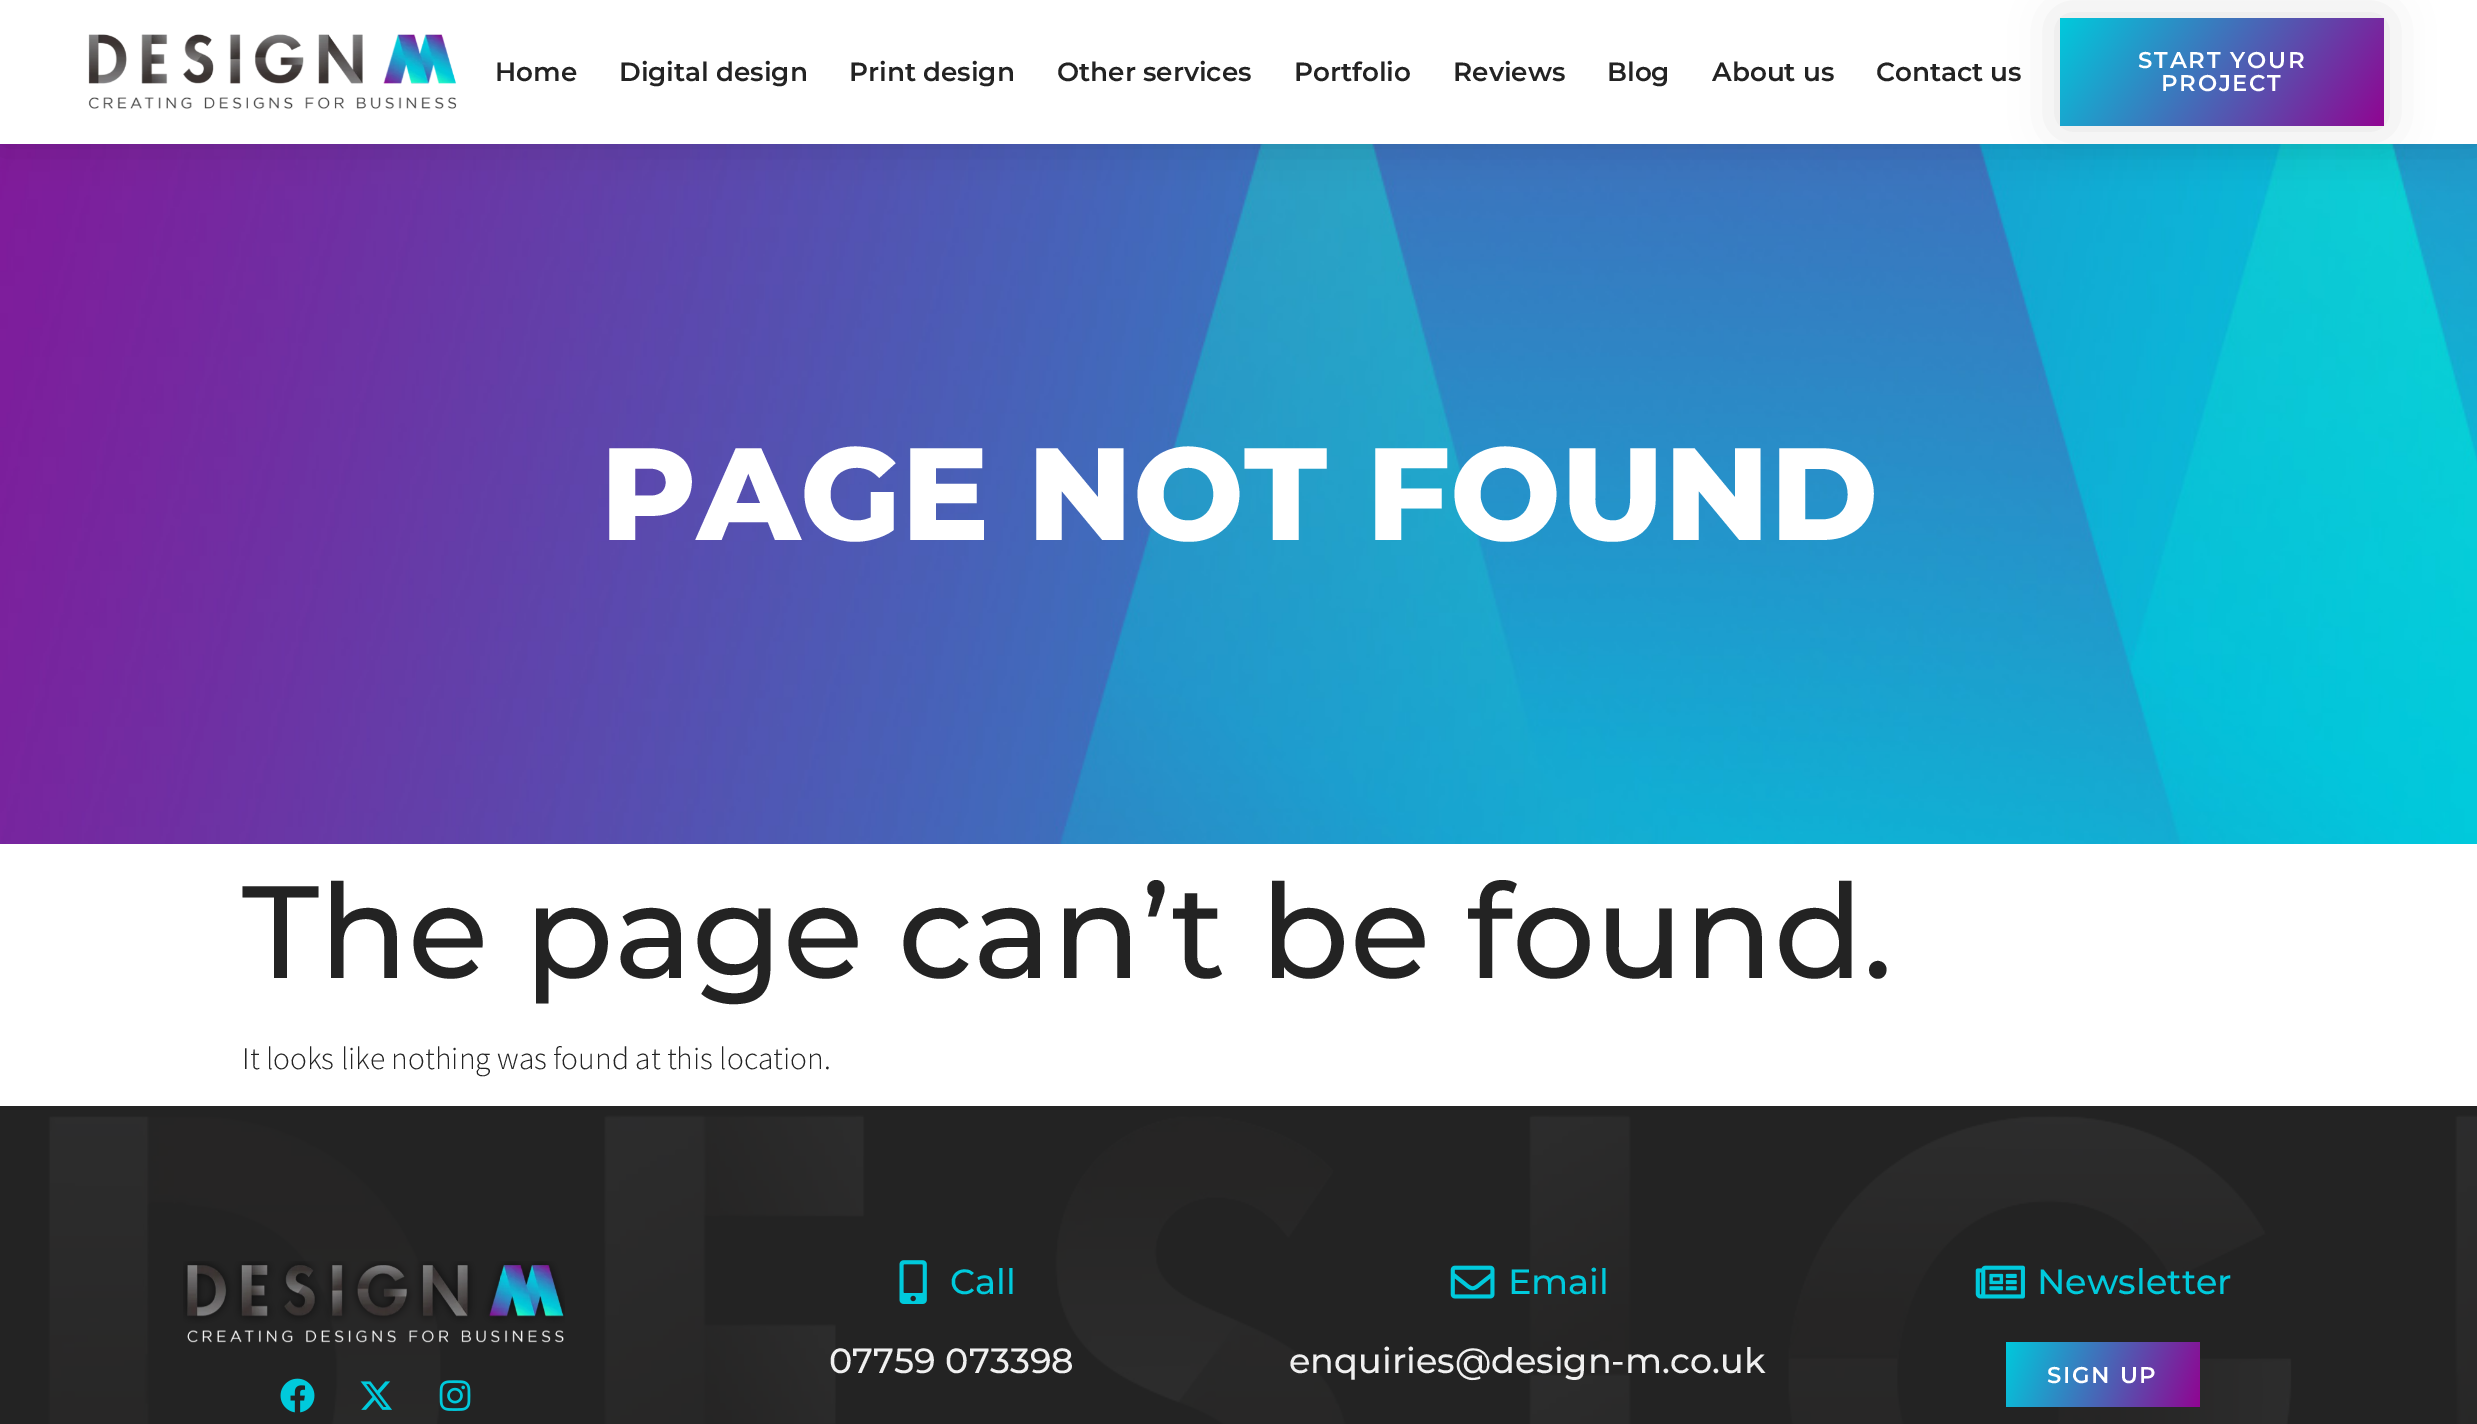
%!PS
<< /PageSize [2477 1424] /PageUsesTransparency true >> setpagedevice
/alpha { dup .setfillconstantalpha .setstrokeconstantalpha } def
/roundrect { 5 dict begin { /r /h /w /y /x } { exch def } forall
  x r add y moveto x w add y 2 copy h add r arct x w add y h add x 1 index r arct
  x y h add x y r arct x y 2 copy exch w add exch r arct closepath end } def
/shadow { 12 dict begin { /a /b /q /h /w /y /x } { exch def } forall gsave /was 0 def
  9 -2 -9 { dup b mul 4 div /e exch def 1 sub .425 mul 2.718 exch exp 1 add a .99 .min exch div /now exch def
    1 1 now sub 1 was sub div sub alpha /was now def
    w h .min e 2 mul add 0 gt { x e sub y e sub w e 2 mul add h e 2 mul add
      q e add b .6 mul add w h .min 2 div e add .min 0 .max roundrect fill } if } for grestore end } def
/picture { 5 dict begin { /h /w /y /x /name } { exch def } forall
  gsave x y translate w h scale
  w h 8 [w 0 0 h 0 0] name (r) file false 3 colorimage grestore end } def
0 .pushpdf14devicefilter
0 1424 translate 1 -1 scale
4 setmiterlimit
1 setgray
0 0 2477 1424 rectfill
(img2.rgb) 0 144 2477 700 picture
0 setgray
0 0 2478 144 0 21 0.15 shadow
1 setgray
0 0 2477 144 rectfill
(img1.rgb) 88 34 369 75 picture
/Montserrat-SemiBold [26.25 0 0 -26.25 0 0] selectfont
0.137 setgray
495 81 moveto (Home) show
619 81 moveto (Digital design) show
849 81 moveto (Print design) show
1057 81 moveto (Other services) show
1294 81 moveto (Portfolio) show
1453 81 moveto (Reviews) show
1607 81 moveto (Blog) show
1712 81 moveto (About us) show
0 setgray
2060 18 324 108 0 23.5 0.12 shadow
0.137 setgray
1876 81 moveto (Contact us) show
gsave newpath 2060 18 moveto 2384 18 lineto 2384 126 lineto 2060 126 lineto closepath clip newpath
<< /ShadingType 2 /ColorSpace /DeviceRGB /Coords [2085 -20 2358 164] /Extend [true true] /Function << /FunctionType 2 /Domain [0 1] /C0 [0 0.792 0.863] /C1 [0.565 0.02 0.573] /N 1 >> >> shfill grestore
/Montserrat-SemiBold [22.75 0 0 -22.75 0 0] selectfont
1 setgray
2138 68 moveto 1.75 0 (START YOUR) ashow
2161 91 moveto 1.75 0 (PROJECT) ashow
/Montserrat-ExtraBold [131.25 0 0 -131.25 0 0] selectfont
600 540 moveto (PAGE NOT FOUND) show
/Montserrat-Medium [131.25 0 0 -131.25 0 0] selectfont
0.137 setgray
242 978 moveto (The page can’t be found.) show
/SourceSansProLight-Light [31.5 0 0 -31.5 0 0] selectfont
242 1069 moveto (It looks like nothing was found at this location.) show
0 1106 2477 318 rectfill
(img3.rgb) 48 1115 2429 309 picture
(img4.rgb) 183 1261 382 82 picture
(img5.rgb) 280 1378 35 35 picture
(img6.rgb) 360 1381 32 29 picture
(img7.rgb) 439 1380 32 31 picture
(img8.rgb) 899 1260 28 44 picture
/Montserrat-Medium [35 0 0 -35 0 0] selectfont
0 0.792 0.863 setrgbcolor
950 1294 moveto (Call) show
0.941 setgray
829 1373 moveto (07759 073398) show
(img9.rgb) 1450 1265 45 34 picture
0 0.792 0.863 setrgbcolor
1508 1294 moveto (Email) show
0.941 setgray
1289 1373 moveto (enquiries@design-m.co.uk) show
(img10.rgb) 1975 1265 50 34 picture
0 0.792 0.863 setrgbcolor
2037 1294 moveto (Newsletter) show
gsave newpath 2006 1342 moveto 2200 1342 lineto 2200 1407 lineto 2006 1407 lineto closepath clip newpath
<< /ShadingType 2 /ColorSpace /DeviceRGB /Coords [2005 1343 2200 1406] /Extend [true true] /Function << /FunctionType 2 /Domain [0 1] /C0 [0 0.792 0.863] /C1 [0.565 0.02 0.573] /N 1 >> >> shfill grestore
/Montserrat-SemiBold [22.75 0 0 -22.75 0 0] selectfont
1 setgray
2047 1383 moveto 1.75 0 (SIGN UP) ashow
.poppdf14devicefilter showpage
